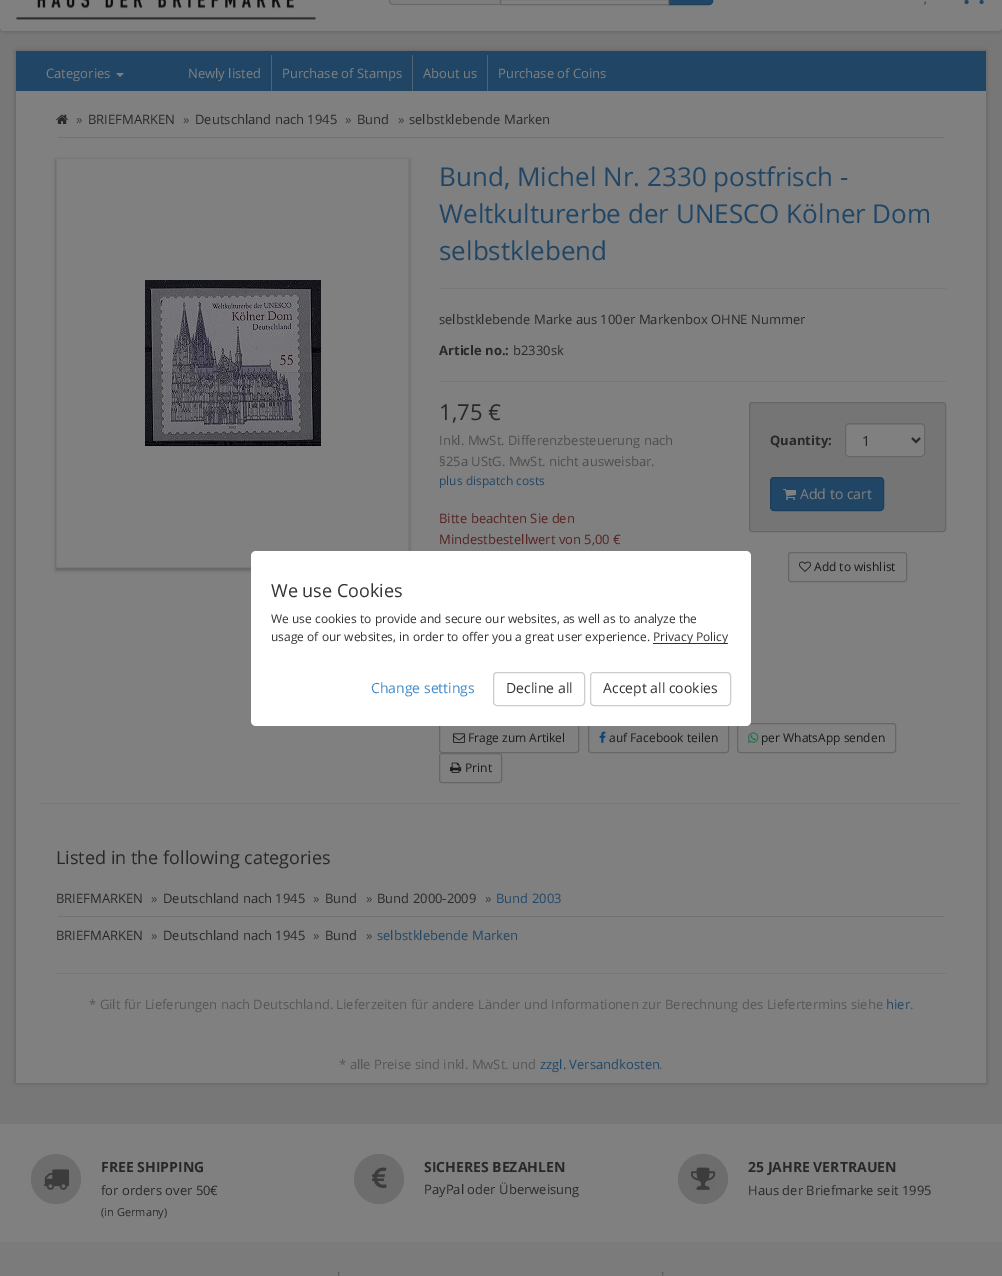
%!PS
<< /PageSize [1002 1276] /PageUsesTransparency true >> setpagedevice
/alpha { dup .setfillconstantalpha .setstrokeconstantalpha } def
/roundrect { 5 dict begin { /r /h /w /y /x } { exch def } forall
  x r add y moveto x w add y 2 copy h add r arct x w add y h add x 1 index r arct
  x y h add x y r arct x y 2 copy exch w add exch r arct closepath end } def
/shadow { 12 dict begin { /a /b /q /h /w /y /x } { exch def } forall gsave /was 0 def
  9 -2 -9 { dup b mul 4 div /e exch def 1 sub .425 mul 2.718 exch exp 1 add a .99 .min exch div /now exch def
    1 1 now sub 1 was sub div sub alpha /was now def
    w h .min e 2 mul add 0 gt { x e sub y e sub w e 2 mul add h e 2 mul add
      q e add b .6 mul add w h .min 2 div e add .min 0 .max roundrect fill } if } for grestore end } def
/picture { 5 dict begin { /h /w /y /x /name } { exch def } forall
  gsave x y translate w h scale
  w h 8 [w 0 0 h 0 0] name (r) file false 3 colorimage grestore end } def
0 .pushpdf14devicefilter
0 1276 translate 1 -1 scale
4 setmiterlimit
0.467 setgray
0 0 1002 1276 rectfill
0 setgray
0 -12 1002 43 4 2.5 0.2 shadow
0.502 setgray
0 -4 1002 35 4 roundrect fill
(img1.rgb) 16 0 300 20 picture
gsave
newpath 393 -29 moveto 501 -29 lineto 501 5 lineto 393 5 lineto 391 5 389 3 389 1 curveto 389 -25 lineto 389 -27 391 -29 393 -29 curveto closepath clip newpath
gsave newpath 389 0 moveto 501 0 lineto 501 4 lineto 389 4 lineto closepath clip newpath
<< /ShadingType 2 /ColorSpace /DeviceRGB /Coords [446 -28 446 4] /Extend [true true] /Function << /FunctionType 2 /Domain [0 1] /C0 [0.49 0.49 0.49] /C1 [0.49 0.482 0.482] /N 1 >> >> shfill grestore
grestore
0.4 setgray
newpath 393 -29 moveto 501 -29 lineto 501 5 lineto 393 5 lineto 391 5 389 3 389 1 curveto 389 -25 lineto 389 -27 391 -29 393 -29 curveto closepath 393 -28 moveto 501 -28 lineto 501 4 lineto 393 4 lineto 391 4 390 3 390 1 curveto 390 -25 lineto 390 -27 391 -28 393 -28 curveto closepath eofill
0.129 0.275 0.396 setrgbcolor
newpath 668.5 -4.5 moveto 709 -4.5 lineto 711 -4.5 712.5 -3 712.5 -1 curveto 712.5 1 lineto 712.5 3 711 4.5 709 4.5 curveto 668.5 4.5 lineto closepath gsave fill grestore
0.106 0.247 0.373 setrgbcolor
stroke
0.502 setgray
newpath 500.5 -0.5 moveto 668.5 -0.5 lineto 668.5 4.5 lineto 500.5 4.5 lineto closepath gsave fill grestore
0.4 setgray
stroke
/OpenSans-Regular [11 0 0 -11 0 0] selectfont
0.157 setgray
924 3 moveto (,) show
(img2.rgb) 964 0 20 5 picture
0 setgray
16 51 970 1032 0 2.5 0.2 shadow
0.502 setgray
16 91 970 992 rectfill
0.129 0.275 0.396 setrgbcolor
16 51 970 40 rectfill
/OpenSans-Regular [13 0 0 -13 0 0] selectfont
0.502 setgray
46 78 moveto (Categories) show
newpath 116 73 moveto 124 73 lineto 120 77 lineto closepath fill
0.318 0.388 0.451 setrgbcolor
271 55 1 36 rectfill
0.502 setgray
188 78 moveto (Newly listed) show
0.318 0.388 0.451 setrgbcolor
412 55 1 36 rectfill
0.502 setgray
282 78 moveto (Purchase of Stamps) show
0.318 0.388 0.451 setrgbcolor
487 55 1 36 rectfill
0.502 setgray
423 78 moveto (About us) show
498 78 moveto (Purchase of Coins) show
0.447 setgray
58 137 886 1 rectfill
(img3.rgb) 56 114 12 10 picture
0.235 setgray
76 124 moveto (») show
0.157 setgray
88 124 moveto (BRIEFMARKEN) show
0.235 setgray
183 124 moveto (») show
0.157 setgray
195 124 moveto (Deutschland nach 1945) show
0.235 setgray
345 124 moveto (») show
0.157 setgray
357 124 moveto (Bund) show
0.235 setgray
398 124 moveto (») show
0.157 setgray
409 124 moveto (selbstklebende Marken) show
gsave
newpath 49 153 moveto 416 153 lineto 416 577 lineto 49 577 lineto closepath 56 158 moveto 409 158 lineto 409 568 lineto 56 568 lineto closepath eoclip newpath
0 setgray
56 160 353 410 0 2 0.3 shadow
grestore
0.471 setgray
56.5 158.5 352 409 rectstroke
(img4.rgb) 145 280 176 166 picture
0.467 setgray
439 288 507 1 rectfill
/OpenSans-Regular [26 0 0 -26 0 0] selectfont
0.129 0.275 0.396 setrgbcolor
439 186 moveto (Bund, Michel Nr. 2330 postfrisch -) show
439 223 moveto (Weltkulturerbe der UNESCO Kölner Dom) show
439 260 moveto (selbstklebend) show
/OpenSans-Regular [13 0 0 -13 0 0] selectfont
0.157 setgray
439 324 moveto (selbstklebende Marke aus 100er Markenbox OHNE Nummer) show
/OpenSans-Bold [13 0 0 -13 0 0] selectfont
439 355 moveto (Article no.:) show
/OpenSans-Regular [13 0 0 -13 0 0] selectfont
513 355 moveto (b2330sk) show
0.467 setgray
439 381 507 1 rectfill
/OpenSans-Regular [22 0 0 -22 0 0] selectfont
0.157 setgray
439 420 moveto (1,75 €) show
/OpenSans-Regular [13 0 0 -13 0 0] selectfont
0.302 setgray
439 445 moveto (Inkl. MwSt. Differenzbesteuerung nach) show
439 466 moveto (§25a UStG. MwSt. nicht ausweisbar.) show
/OpenSans-Regular [12 0 0 -12 0 0] selectfont
0.129 0.275 0.396 setrgbcolor
439 485 moveto (plus dispatch costs) show
/OpenSans-Regular [13 0 0 -13 0 0] selectfont
0.333 0.133 0.129 setrgbcolor
439 523 moveto (Bitte beachten Sie den) show
439 544 moveto (Mindestbestellwert von 5,00 €) show
0.459 setgray
749.5 402.5 196 129 2.5 roundrect gsave fill grestore
0.4 setgray
stroke
/OpenSans-Bold [13 0 0 -13 0 0] selectfont
0.157 setgray
770 445 moveto (Quantity:) show
0.502 setgray
845 423 80 34 4 roundrect fill
0.463 setgray
newpath 849 425 moveto 921 425 lineto 923 425 924 426 924 428 curveto 924 421 913 424 909 424 curveto 861 424 lineto 857 424 846 421 846 428 curveto 846 426 847 425 849 425 curveto closepath fill
0.4 setgray
845.5 423.5 79 33 3.5 roundrect stroke
0.169 setgray
2 setlinewidth
newpath 912 438 moveto 916 442 lineto 920 438 lineto stroke
/OpenSans-Regular [14 0 0 -14 0 0] selectfont
0.157 setgray
862 446 moveto (1) show
0.129 0.275 0.396 setrgbcolor
770.5 477.5 113 33 3.5 roundrect gsave fill grestore
0.106 0.247 0.373 setrgbcolor
1 setlinewidth
stroke
(img5.rgb) 783 489 13 11 picture
0.502 setgray
800 499 moveto (Add to cart) show
0.4 setgray
788.5 552.5 118 29 2.5 roundrect stroke
(img6.rgb) 799 561 12 11 picture
/OpenSans-Regular [12 0 0 -12 0 0] selectfont
0.102 setgray
814 571 moveto (Add to wishlist) show
0.4 setgray
439.5 723.5 139 29 2.5 roundrect stroke
(img7.rgb) 453 733 12 10 picture
0.102 setgray
468 742 moveto (Frage zum Artikel) show
0.4 setgray
588.5 723.5 140 29 2.5 roundrect stroke
(img8.rgb) 599 731 7 12 picture
0.102 setgray
609 742 moveto (auf Facebook teilen) show
0.4 setgray
737.5 723.5 158 29 2.5 roundrect stroke
(img9.rgb) 748 732 11 11 picture
0.102 setgray
761 742 moveto (per WhatsApp senden) show
0.4 setgray
439.5 753.5 62 29 2.5 roundrect stroke
(img10.rgb) 450 762 12 11 picture
0.102 setgray
465 772 moveto (Print) show
0.467 setgray
41 803 920 1 rectfill
/OpenSans-Regular [18 0 0 -18 0 0] selectfont
0.157 setgray
56 864 moveto (Listed in the following categories) show
0.447 setgray
58 916 886 1 rectfill
/OpenSans-Regular [13 0 0 -13 0 0] selectfont
0.157 setgray
56 903 moveto (BRIEFMARKEN) show
0.235 setgray
151 903 moveto (») show
0.157 setgray
163 903 moveto (Deutschland nach 1945) show
0.235 setgray
313 903 moveto (») show
0.157 setgray
325 903 moveto (Bund) show
0.235 setgray
366 903 moveto (») show
0.157 setgray
377 903 moveto (Bund 2000-2009) show
0.235 setgray
485 903 moveto (») show
0.129 0.275 0.396 setrgbcolor
496 903 moveto (Bund 2003) show
0.157 setgray
56 940 moveto (BRIEFMARKEN) show
0.235 setgray
151 940 moveto (») show
0.157 setgray
163 940 moveto (Deutschland nach 1945) show
0.235 setgray
313 940 moveto (») show
0.157 setgray
325 940 moveto (Bund) show
0.235 setgray
366 940 moveto (») show
0.129 0.275 0.396 setrgbcolor
377 940 moveto (selbstklebende Marken) show
0.467 setgray
56 973 890 1 rectfill
0.333 setgray
89 1009 moveto (* Gilt für Lieferungen nach Deutschland. Lieferzeiten für andere Länder und Informationen zur Berechnung des Liefertermins siehe) show
0.129 0.275 0.396 setrgbcolor
886 1009 moveto (hier) show
0.333 setgray
910 1009 moveto (.) show
339 1069 moveto (* alle Preise sind inkl. MwSt. und) show
0.129 0.275 0.396 setrgbcolor
540 1069 moveto (zzgl. Versandkosten) show
0.333 setgray
659 1069 moveto (.) show
1 setgray
251 551 500 175 5 roundrect fill
/OpenSans-Regular [18 0 0 -18 0 0] selectfont
0.2 setgray
271 597 moveto (We use Cookies) show
/OpenSans-Regular [12 0 0 -12 0 0] selectfont
271 623 moveto (We use cookies to provide and secure our websites, as well as to analyze the) show
271 641 moveto (usage of our websites, in order to offer you a great user experience.) show
653 643 75 1 rectfill
653 641 moveto (Privacy Policy) show
/OpenSans-Regular [14 0 0 -14 0 0] selectfont
0.259 0.545 0.792 setrgbcolor
371 693 moveto (Change settings) show
0.8 setgray
493.5 672.5 91 33 3.5 roundrect stroke
0.2 setgray
506 693 moveto (Decline all) show
0.8 setgray
590.5 672.5 140 33 3.5 roundrect stroke
0.2 setgray
603 693 moveto (Accept all cookies) show
0.502 setgray
0 1124 1002 118 rectfill
0.427 setgray
newpath 56 1179 25 0 360 arc closepath fill
(img11.rgb) 44 1169 25 21 picture
/OpenSans-Bold [14 0 0 -14 0 0] selectfont
0.157 setgray
101 1172 moveto (FREE SHIPPING) show
/OpenSans-Regular [13 0 0 -13 0 0] selectfont
101 1195 moveto (for orders over 50€) show
/OpenSans-Regular [11 0 0 -11 0 0] selectfont
101 1216 moveto (\(in Germany\)) show
0.427 setgray
newpath 379 1179 25 0 360 arc closepath fill
(img12.rgb) 372 1167 15 21 picture
/OpenSans-Bold [14 0 0 -14 0 0] selectfont
0.157 setgray
424 1172 moveto (SICHERES BEZAHLEN) show
/OpenSans-Regular [13 0 0 -13 0 0] selectfont
424 1194 moveto (PayPal oder Überweisung) show
0.427 setgray
newpath 703 1179 25 0 360 arc closepath fill
(img13.rgb) 691 1167 25 23 picture
/OpenSans-Bold [14 0 0 -14 0 0] selectfont
0.157 setgray
748 1172 moveto (25 JAHRE VERTRAUEN) show
/OpenSans-Regular [13 0 0 -13 0 0] selectfont
748 1195 moveto (Haus der Briefmarke seit 1995) show
0.482 setgray
0 1242 1002 34 rectfill
0.302 setgray
[1 1] 0 setdash
newpath 338.5 1272 moveto 338.5 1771 lineto stroke
newpath 662.5 1272 moveto 662.5 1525 lineto stroke
.poppdf14devicefilter showpage
